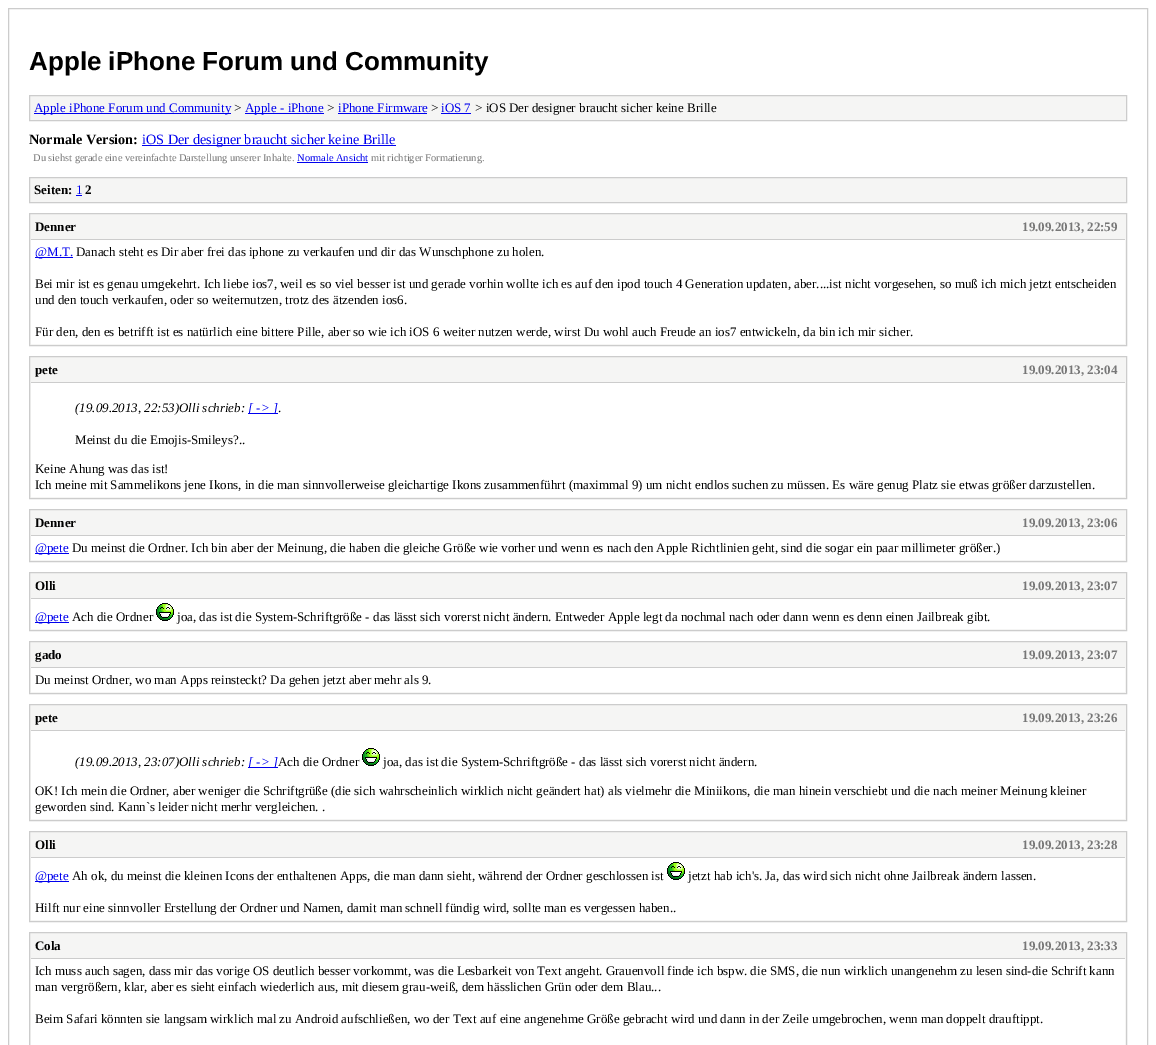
%!PS
<< /PageSize [1156 1045] >> setpagedevice
/picture { 5 dict begin { /h /w /y /x /name } { exch def } forall
  gsave x y translate w h scale
  w h 8 [w 0 0 h 0 0] name (r) file false 3 colorimage grestore end } def
0 1045 translate 1 -1 scale
4 setmiterlimit
1 setgray
0 0 1156 1045 rectfill
0.8 setgray
8.5 8.5 1139 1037 rectstroke
/LiberationSans-Bold [26 0 0 -26 0 0] selectfont
0 setgray
29 70 moveto (Apple iPhone Forum und Community) show
0.961 0.961 0.957 setrgbcolor
newpath 29.5 95.5 moveto 1126.5 95.5 lineto 1126.5 120.5 lineto 29.5 120.5 lineto closepath gsave fill grestore
0.8 setgray
stroke
0 0 0.933 setrgbcolor
34 113 197 1 rectfill
/LiberationSerif-Regular [13 0 0 -13 0 0] selectfont
34 112 moveto (Apple iPhone Forum und Community) show
0 setgray
234 112 moveto (>) show
0 0 0.933 setrgbcolor
245 113 79 1 rectfill
245 112 moveto (Apple - iPhone) show
0 setgray
327 112 moveto (>) show
0 0 0.933 setrgbcolor
338 112 moveto (iPhone Firmware) show
338 113 89 1 rectfill
0 setgray
431 112 moveto (>) show
0 0 0.933 setrgbcolor
441 112 moveto (iOS 7) show
441 113 30 1 rectfill
0 setgray
475 112 moveto (> iOS Der designer braucht sicher keine Brille) show
/LiberationSerif-Bold [14.25 0 0 -14.25 0 0] selectfont
29 144 moveto (Normale Version:) show
0 0 0.933 setrgbcolor
142 145 254 1 rectfill
/LiberationSerif-Regular [14.25 0 0 -14.25 0 0] selectfont
142 144 moveto (iOS Der designer braucht sicher keine Brille) show
/LiberationSerif-Regular [10.4 0 0 -10.4 0 0] selectfont
0.467 setgray
33 161 moveto (Du siehst gerade eine vereinfachte Darstellung unserer Inhalte.) show
0 0 0.933 setrgbcolor
297 161 moveto (Normale Ansicht) show
297 162 71 1 rectfill
0.467 setgray
371 161 moveto (mit richtiger Formatierung.) show
0.961 0.961 0.957 setrgbcolor
newpath 29.5 177.5 moveto 1126.5 177.5 lineto 1126.5 202.5 lineto 29.5 202.5 lineto closepath gsave fill grestore
0.8 setgray
stroke
/LiberationSerif-Bold [13 0 0 -13 0 0] selectfont
0 setgray
34 194 moveto (Seiten:) show
/LiberationSerif-Regular [13 0 0 -13 0 0] selectfont
0 0 0.933 setrgbcolor
76 194 moveto (1) show
76 195 6 1 rectfill
/LiberationSerif-Bold [13 0 0 -13 0 0] selectfont
0 setgray
85 194 moveto (2) show
0.961 0.961 0.957 setrgbcolor
newpath 29.5 213.5 moveto 1126.5 213.5 lineto 1126.5 345.5 lineto 29.5 345.5 lineto closepath gsave fill grestore
0.8 setgray
stroke
31 239 1094 1 rectfill
0 setgray
35 231 moveto (Denner) show
0.467 setgray
1022 231 moveto (19.09.2013, 22:59) show
1 setgray
31 240 1094 104 rectfill
0 0 0.933 setrgbcolor
35 257 38 1 rectfill
/LiberationSerif-Regular [13 0 0 -13 0 0] selectfont
35 256 moveto (@M.T.) show
0 setgray
76 256 moveto (Danach steht es Dir aber frei das iphone zu verkaufen und dir das Wunschphone zu holen.) show
35 288 moveto (Bei mir ist es genau umgekehrt. Ich liebe ios7, weil es so viel besser ist und gerade vorhin wollte ich es auf den ipod touch 4 Generation updaten, aber....ist nicht vorgesehen, so muß ich mich jetzt entscheiden) show
35 304 moveto (und den touch verkaufen, oder so weiternutzen, trotz des ätzenden ios6.) show
35 336 moveto (Für den, den es betrifft ist es natürlich eine bittere Pille, aber so wie ich iOS 6 weiter nutzen werde, wirst Du wohl auch Freude an ios7 entwickeln, da bin ich mir sicher.) show
0.961 0.961 0.957 setrgbcolor
newpath 29.5 356.5 moveto 1126.5 356.5 lineto 1126.5 498.5 lineto 29.5 498.5 lineto closepath gsave fill grestore
0.8 setgray
stroke
31 382 1094 1 rectfill
/LiberationSerif-Bold [13 0 0 -13 0 0] selectfont
0 setgray
35 374 moveto (pete) show
0.467 setgray
1022 374 moveto (19.09.2013, 23:04) show
1 setgray
31 383 1094 114 rectfill
/LiberationSerif-Italic [13 0 0 -13 0 0] selectfont
0 setgray
75 412 moveto (\(19.09.2013, 22:53\)Olli schrieb:) show
0 0 0.933 setrgbcolor
248 413 30 1 rectfill
248 412 moveto ([ -> ]) show
/LiberationSerif-Regular [13 0 0 -13 0 0] selectfont
0 setgray
278 412 moveto (.) show
75 444 moveto (Meinst du die Emojis-Smileys?..) show
35 473 moveto (Keine Ahung was das ist!) show
35 489 moveto (Ich meine mit Sammelikons jene Ikons, in die man sinnvollerweise gleichartige Ikons zusammenführt \(maximmal 9\) um nicht endlos suchen zu müssen. Es wäre genug Platz sie etwas größer darzustellen.) show
0.961 0.961 0.957 setrgbcolor
newpath 29.5 509.5 moveto 1126.5 509.5 lineto 1126.5 561.5 lineto 29.5 561.5 lineto closepath gsave fill grestore
0.8 setgray
stroke
31 535 1094 1 rectfill
/LiberationSerif-Bold [13 0 0 -13 0 0] selectfont
0 setgray
35 527 moveto (Denner) show
0.467 setgray
1022 527 moveto (19.09.2013, 23:06) show
1 setgray
31 536 1094 24 rectfill
0 0 0.933 setrgbcolor
35 553 34 1 rectfill
/LiberationSerif-Regular [13 0 0 -13 0 0] selectfont
35 552 moveto (@pete) show
0 setgray
72 552 moveto (Du meinst die Ordner. Ich bin aber der Meinung, die haben die gleiche Größe wie vorher und wenn es nach den Apple Richtlinien geht, sind die sogar ein paar millimeter größer.\)) show
0.961 0.961 0.957 setrgbcolor
newpath 29.5 572.5 moveto 1126.5 572.5 lineto 1126.5 630.5 lineto 29.5 630.5 lineto closepath gsave fill grestore
0.8 setgray
stroke
31 598 1094 1 rectfill
/LiberationSerif-Bold [13 0 0 -13 0 0] selectfont
0 setgray
35 590 moveto (Olli) show
0.467 setgray
1022 590 moveto (19.09.2013, 23:07) show
1 setgray
31 599 1094 30 rectfill
0 0 0.933 setrgbcolor
35 622 34 1 rectfill
/LiberationSerif-Regular [13 0 0 -13 0 0] selectfont
35 621 moveto (@pete) show
0 setgray
72 621 moveto (Ach die Ordner) show
(img1.rgb) 156 603 18 18 picture
177 621 moveto (joa, das ist die System-Schriftgröße - das lässt sich vorerst nicht ändern. Entweder Apple legt da nochmal nach oder dann wenn es denn einen Jailbreak gibt.) show
0.961 0.961 0.957 setrgbcolor
newpath 29.5 641.5 moveto 1126.5 641.5 lineto 1126.5 693.5 lineto 29.5 693.5 lineto closepath gsave fill grestore
0.8 setgray
stroke
31 667 1094 1 rectfill
/LiberationSerif-Bold [13 0 0 -13 0 0] selectfont
0 setgray
35 659 moveto (gado) show
0.467 setgray
1022 659 moveto (19.09.2013, 23:07) show
1 setgray
31 668 1094 24 rectfill
/LiberationSerif-Regular [13 0 0 -13 0 0] selectfont
0 setgray
35 684 moveto (Du meinst Ordner, wo man Apps reinsteckt? Da gehen jetzt aber mehr als 9.) show
0.961 0.961 0.957 setrgbcolor
newpath 29.5 704.5 moveto 1126.5 704.5 lineto 1126.5 820.5 lineto 29.5 820.5 lineto closepath gsave fill grestore
0.8 setgray
stroke
31 730 1094 1 rectfill
/LiberationSerif-Bold [13 0 0 -13 0 0] selectfont
0 setgray
35 722 moveto (pete) show
0.467 setgray
1022 722 moveto (19.09.2013, 23:26) show
1 setgray
31 731 1094 88 rectfill
/LiberationSerif-Italic [13 0 0 -13 0 0] selectfont
0 setgray
75 766 moveto (\(19.09.2013, 23:07\)Olli schrieb:) show
0 0 0.933 setrgbcolor
248 767 30 1 rectfill
248 766 moveto ([ -> ]) show
/LiberationSerif-Regular [13 0 0 -13 0 0] selectfont
0 setgray
278 766 moveto (Ach die Ordner) show
(img1.rgb) 362 748 18 18 picture
383 766 moveto (joa, das ist die System-Schriftgröße - das lässt sich vorerst nicht ändern.) show
35 795 moveto (OK! Ich mein die Ordner, aber weniger die Schriftgrüße \(die sich wahrscheinlich wirklich nicht geändert hat\) als vielmehr die Miniikons, die man hinein verschiebt und die nach meiner Meinung kleiner) show
35 811 moveto (geworden sind. Kann`s leider nicht merhr vergleichen. .) show
0.961 0.961 0.957 setrgbcolor
newpath 29.5 831.5 moveto 1126.5 831.5 lineto 1126.5 921.5 lineto 29.5 921.5 lineto closepath gsave fill grestore
0.8 setgray
stroke
31 857 1094 1 rectfill
/LiberationSerif-Bold [13 0 0 -13 0 0] selectfont
0 setgray
35 849 moveto (Olli) show
0.467 setgray
1022 849 moveto (19.09.2013, 23:28) show
1 setgray
31 858 1094 62 rectfill
0 0 0.933 setrgbcolor
35 881 34 1 rectfill
/LiberationSerif-Regular [13 0 0 -13 0 0] selectfont
35 880 moveto (@pete) show
0 setgray
72 880 moveto (Ah ok, du meinst die kleinen Icons der enthaltenen Apps, die man dann sieht, während der Ordner geschlossen ist) show
(img1.rgb) 667 862 18 18 picture
688 880 moveto (jetzt hab ich's. Ja, das wird sich nicht ohne Jailbreak ändern lassen.) show
35 912 moveto (Hilft nur eine sinnvoller Erstellung der Ordner und Namen, damit man schnell fündig wird, sollte man es vergessen haben..) show
0.961 0.961 0.957 setrgbcolor
newpath 29.5 932.5 moveto 1126.5 932.5 lineto 1126.5 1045.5 lineto 29.5 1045.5 lineto closepath gsave fill grestore
0.8 setgray
stroke
31 958 1094 1 rectfill
/LiberationSerif-Bold [13 0 0 -13 0 0] selectfont
0 setgray
35 950 moveto (Cola) show
0.467 setgray
1022 950 moveto (19.09.2013, 23:33) show
1 setgray
31 959 1094 86 rectfill
/LiberationSerif-Regular [13 0 0 -13 0 0] selectfont
0 setgray
35 975 moveto (Ich muss auch sagen, dass mir das vorige OS deutlich besser vorkommt, was die Lesbarkeit von Text angeht. Grauenvoll finde ich bspw. die SMS, die nun wirklich unangenehm zu lesen sind-die Schrift kann) show
35 991 moveto (man vergrößern, klar, aber es sieht einfach wiederlich aus, mit diesem grau-weiß, dem hässlichen Grün oder dem Blau...) show
35 1023 moveto (Beim Safari könnten sie langsam wirklich mal zu Android aufschließen, wo der Text auf eine angenehme Größe gebracht wird und dann in der Zeile umgebrochen, wenn man doppelt drauftippt.) show
showpage
